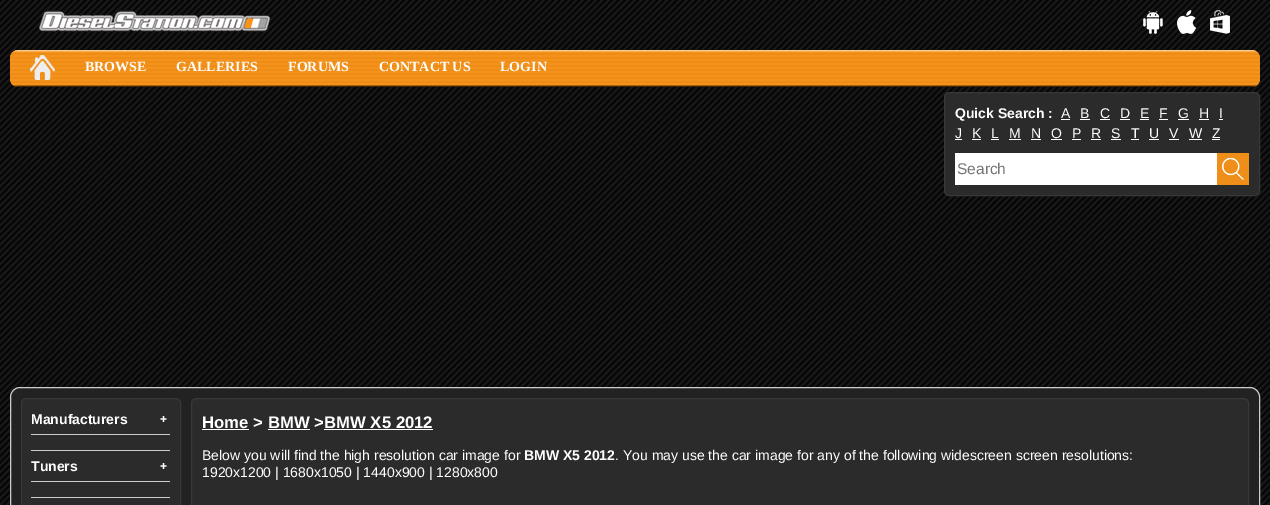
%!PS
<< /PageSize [1270 505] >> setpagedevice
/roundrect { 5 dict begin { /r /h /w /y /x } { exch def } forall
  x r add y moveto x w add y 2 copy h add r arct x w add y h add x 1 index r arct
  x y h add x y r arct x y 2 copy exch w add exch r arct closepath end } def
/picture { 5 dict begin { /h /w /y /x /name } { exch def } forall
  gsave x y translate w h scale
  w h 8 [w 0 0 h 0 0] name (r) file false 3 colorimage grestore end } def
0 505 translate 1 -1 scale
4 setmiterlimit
1 setgray
0 0 1270 505 rectfill
(img1.rgb) 0 0 1270 505 picture
(img2.rgb) 39 10 232 22 picture
(img3.rgb) 1143 11 20 23 picture
(img4.rgb) 1177 10 19 24 picture
(img5.rgb) 1210 10 20 24 picture
0.937 0.557 0.094 setrgbcolor
10 50 1250 37 8 roundrect fill
(img6.rgb) 10 50 1250 37 picture
(img7.rgb) 30 55 25 25 picture
/LiberationSerif-Bold [14 0 0 -14 0 0] selectfont
1 setgray
85 71 moveto (BROWSE) show
176 71 moveto (GALLERIES) show
288 71 moveto (FORUMS) show
379 71 moveto (CONTACT US) show
500 71 moveto (LOGIN) show
0.169 setgray
944.5 92.5 315 103 4.5 roundrect gsave fill grestore
0.22 setgray
stroke
/LiberationSans-Bold [14 0 0 -14 0 0] selectfont
1 setgray
955 118 moveto (Quick Search :) show
/LiberationSans-Regular [14 0 0 -14 0 0] selectfont
1061 118 moveto (A) show
1061 119 9 1 rectfill
1080 118 moveto (B) show
1080 119 10 1 rectfill
1100 118 moveto (C) show
1100 119 10 1 rectfill
1120 118 moveto (D) show
1120 119 10 1 rectfill
1140 118 moveto (E) show
1140 119 9 1 rectfill
1159 118 moveto (F) show
1159 119 9 1 rectfill
1178 118 moveto (G) show
1178 119 11 1 rectfill
1199 118 moveto (H) show
1199 119 10 1 rectfill
1219 118 moveto (I) show
1219 119 4 1 rectfill
955 138 moveto (J) show
955 139 7 1 rectfill
972 138 moveto (K) show
972 139 9 1 rectfill
991 138 moveto (L) show
991 139 8 1 rectfill
1009 138 moveto (M) show
1009 139 12 1 rectfill
1031 138 moveto (N) show
1031 139 10 1 rectfill
1051 138 moveto (O) show
1051 139 11 1 rectfill
1072 138 moveto (P) show
1072 139 9 1 rectfill
1091 138 moveto (R) show
1091 139 10 1 rectfill
1111 138 moveto (S) show
1111 139 10 1 rectfill
1131 138 moveto (T) show
1131 139 8 1 rectfill
1149 138 moveto (U) show
1149 139 10 1 rectfill
1169 138 moveto (V) show
1169 139 10 1 rectfill
1189 138 moveto (W) show
1189 139 13 1 rectfill
1212 138 moveto (Z) show
1212 139 8 1 rectfill
955 153 262 32 rectfill
/LiberationSans-Regular [15.5 0 0 -15.5 0 0] selectfont
0.459 setgray
957 174 moveto (Search) show
0.937 0.557 0.094 setrgbcolor
1217 153 32 32 rectfill
(img8.rgb) 1222 158 22 22 picture
0.133 setgray
10.5 387.5 1249 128 9.5 roundrect gsave fill grestore
0.8 setgray
stroke
0.169 setgray
21.5 398.5 159 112 4.5 roundrect gsave fill grestore
0.22 setgray
stroke
0.8 setgray
31 434 139 1 rectfill
/LiberationSans-Bold [14 0 0 -14 0 0] selectfont
1 setgray
31 424 moveto (Manufacturers) show
/LiberationSans-Bold [12 0 0 -12 0 0] selectfont
160 423 moveto (+) show
0.8 setgray
31 450 139 1 rectfill
31 481 139 1 rectfill
/LiberationSans-Bold [14 0 0 -14 0 0] selectfont
1 setgray
31 471 moveto (Tuners) show
/LiberationSans-Bold [12 0 0 -12 0 0] selectfont
160 470 moveto (+) show
0.8 setgray
31 497 139 1 rectfill
0.169 setgray
191.5 398.5 1057 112 4.5 roundrect gsave fill grestore
0.22 setgray
stroke
/LiberationSans-Bold [16.75 0 0 -16.75 0 0] selectfont
1 setgray
202 428 moveto (Home > BMW >BMW X5 2012) show
202 429 47 1 rectfill
268 429 42 1 rectfill
324 429 109 1 rectfill
/LiberationSans-Regular [14 0 0 -14 0 0] selectfont
202 460 moveto (Below you will find the high resolution car image for) show
/LiberationSans-Bold [14 0 0 -14 0 0] selectfont
524 460 moveto (BMW X5 2012) show
/LiberationSans-Regular [14 0 0 -14 0 0] selectfont
615 460 moveto (. You may use the car image for any of the following widescreen screen resolutions:) show
202 477 moveto (1920x1200 | 1680x1050 | 1440x900 | 1280x800) show
showpage
